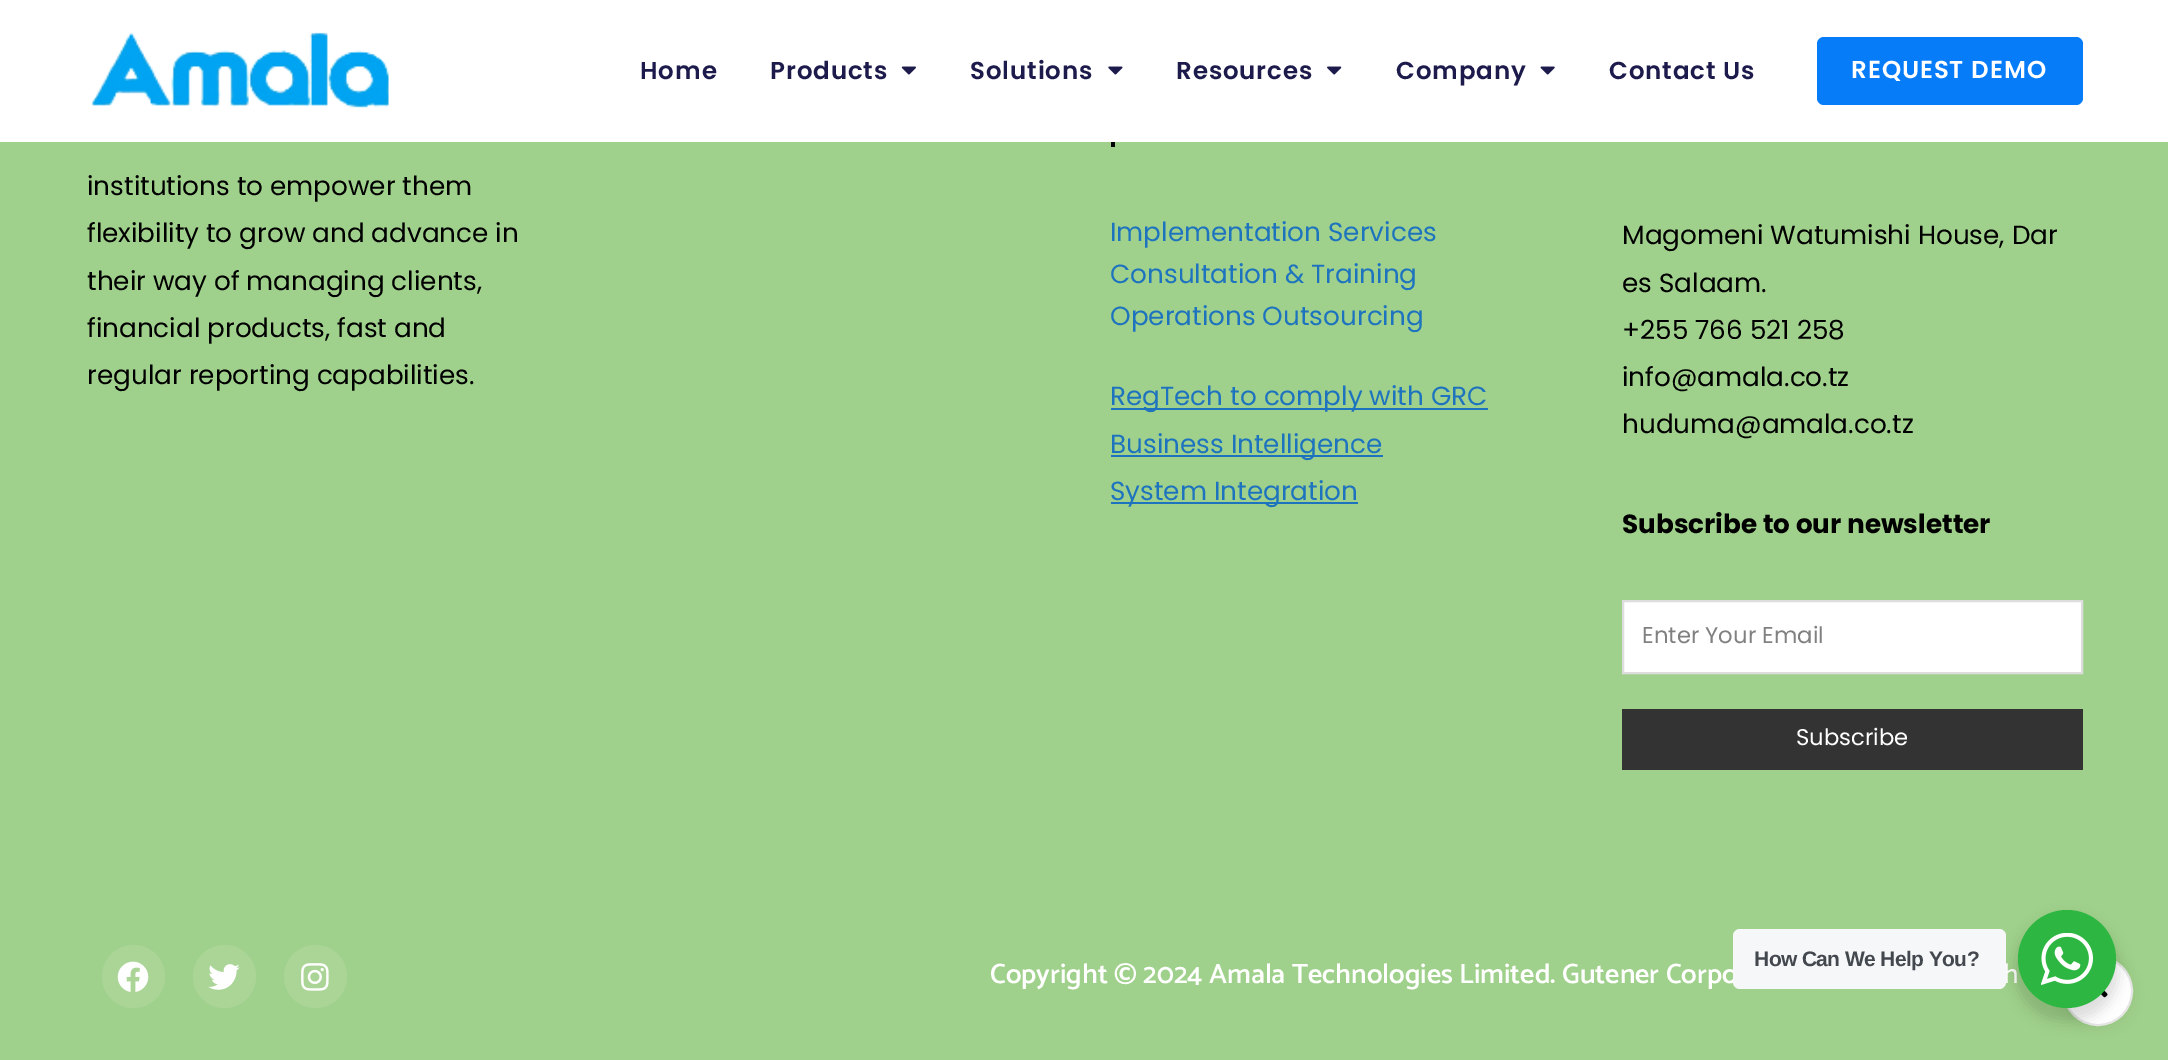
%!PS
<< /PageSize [2168 1060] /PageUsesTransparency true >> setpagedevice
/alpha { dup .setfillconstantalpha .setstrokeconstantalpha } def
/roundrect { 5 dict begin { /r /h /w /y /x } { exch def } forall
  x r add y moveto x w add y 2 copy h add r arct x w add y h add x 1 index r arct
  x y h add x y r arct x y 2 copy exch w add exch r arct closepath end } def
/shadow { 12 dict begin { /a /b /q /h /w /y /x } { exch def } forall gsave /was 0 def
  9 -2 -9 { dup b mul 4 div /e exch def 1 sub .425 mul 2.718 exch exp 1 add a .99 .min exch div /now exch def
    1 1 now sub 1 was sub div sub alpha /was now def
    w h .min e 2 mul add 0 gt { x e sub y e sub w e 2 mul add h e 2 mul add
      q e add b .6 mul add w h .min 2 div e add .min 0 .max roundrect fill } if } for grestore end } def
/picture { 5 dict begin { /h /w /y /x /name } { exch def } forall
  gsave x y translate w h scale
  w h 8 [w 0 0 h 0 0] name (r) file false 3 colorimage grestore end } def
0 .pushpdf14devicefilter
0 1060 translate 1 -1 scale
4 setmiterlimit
0.627 0.82 0.549 setrgbcolor
0 0 2168 1060 rectfill
1 setgray
0 0 2168 142 rectfill
(img1.rgb) 90 32 299 76 picture
/Poppins-SemiBold [24.5 0 0 -24.5 0 0] selectfont
0.114 0.106 0.298 setrgbcolor
640 79 moveto 0.9 0 (Home) ashow
770 79 moveto 0.9 0 (Products) ashow
(img2.rgb) 901 66 15 9 picture
970 79 moveto 0.9 0 (Solutions) ashow
(img3.rgb) 1108 66 15 9 picture
1176 79 moveto 0.9 0 (Resources) ashow
(img4.rgb) 1327 66 15 9 picture
1396 79 moveto 0.9 0 (Company) ashow
(img5.rgb) 1540 66 15 9 picture
1609 79 moveto 0.9 0 (Contact Us) ashow
0.027 0.486 0.976 setrgbcolor
1817 37 266 68 7 roundrect fill
1 setgray
1851 78 moveto 0.9 0 (REQUEST DEMO) ashow
/Poppins-Regular [26.25 0 0 -26.25 0 0] selectfont
0 setgray
87 195 moveto (institutions to empower them) show
87 242 moveto (flexibility to grow and advance in) show
87 290 moveto (their way of managing clients,) show
87 337 moveto (financial products, fast and) show
87 384 moveto (regular reporting capabilities.) show
1111 142 4 5 rectfill
0.118 0.451 0.745 setrgbcolor
1110 241 moveto (Implementation Services) show
1110 283 moveto (Consultation & Training) show
1110 325 moveto (Operations Outsourcing) show
1111 408 377 2 rectfill
1110 405 moveto (RegTech to comply with GRC) show
1111 455 272 2 rectfill
1110 453 moveto (Business Intelligence) show
1111 502 247 2 rectfill
1110 500 moveto (System Integration) show
0 setgray
1622 244 moveto (Magomeni Watumishi House, Dar) show
1622 292 moveto (es Salaam.) show
1622 339 moveto (+255 766 521 258) show
1622 386 moveto (info@amala.co.tz) show
1622 433 moveto (huduma@amala.co.tz) show
/Poppins-Bold [26.25 0 0 -26.25 0 0] selectfont
1622 533 moveto (Subscribe to our newsletter) show
1 setgray
newpath 1623 601 moveto 2082 601 lineto 2082 673 lineto 1623 673 lineto closepath gsave fill grestore
0.867 setgray
2 setlinewidth
stroke
/Poppins-Regular [22.75 0 0 -22.75 0 0] selectfont
0.502 setgray
1642 643 moveto (Enter Your Email) show
0.2 setgray
1622 709 461 61 rectfill
1 setgray
1796 745 moveto (Subscribe) show
0.667 0.835 0.592 setrgbcolor
newpath 133.5 976.5 31.5 0 360 arc closepath fill
(img6.rgb) 117 961 32 31 picture
newpath 224.5 976.5 31.5 0 360 arc closepath fill
(img7.rgb) 208 964 32 26 picture
newpath 315.5 976.5 31.5 0 360 arc closepath fill
(img8.rgb) 301 963 28 28 picture
/Catamaran-SemiBold [28 0 0 -28 0 0] selectfont
1 setgray
990 983 moveto (Copyright © 2024 Amala Technologies Limited. Gutener Corpo) show
/Catamaran-Medium [28 0 0 -28 0 0] selectfont
2003 983 moveto (h) show
0 setgray
2063 959 70 70 35 7 0.05 shadow
1 setgray
newpath 2098 991 34 0 360 arc closepath gsave fill grestore
0.898 setgray
stroke
(img9.rgb) 2100 990 8 8 picture
0 setgray
2014 917 105 105 52.5 7 0.14 shadow
0.961 0.969 0.976 setrgbcolor
1733 929 273 60 7 roundrect fill
/LiberationSans-Bold [21 0 0 -21 0 0] selectfont
0.263 0.278 0.306 setrgbcolor
1754 966 moveto -0.6 0 (How Can We Help You?) ashow
0.176 0.718 0.259 setrgbcolor
newpath 2067 959 49 0 360 arc closepath fill
(img10.rgb) 2041 933 52 52 picture
.poppdf14devicefilter showpage
